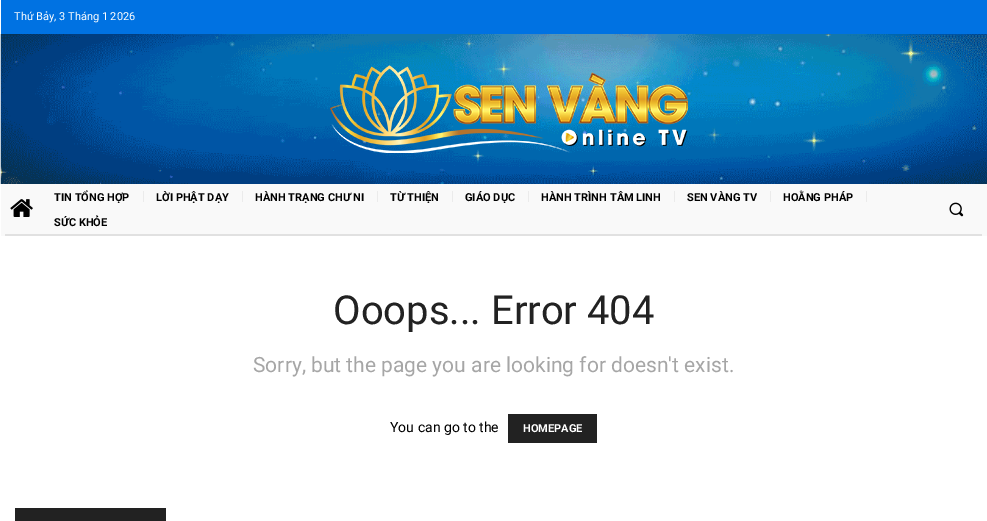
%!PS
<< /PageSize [987 521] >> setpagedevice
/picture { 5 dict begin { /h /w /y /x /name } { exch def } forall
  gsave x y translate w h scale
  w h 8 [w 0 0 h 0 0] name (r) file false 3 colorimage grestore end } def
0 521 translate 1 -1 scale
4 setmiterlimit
1 setgray
0 0 987 521 rectfill
0 0.447 0.886 setrgbcolor
1 0 986 34 rectfill
/Roboto-Regular [11 0 0 -11 0 0] selectfont
1 setgray
14 20 moveto (Thứ Bảy, 3 Tháng 1 2026) show
(img1.rgb) 0 34 987 150 picture
(img2.rgb) 330 65 358 88 picture
0.976 setgray
1 184 986 52 rectfill
0.882 setgray
5 234 977 2 rectfill
(img3.rgb) 10 199 23 18 picture
/Roboto-Bold [11 0 0 -11 0 0] selectfont
0 setgray
54 201 moveto (TIN TỔNG HỢP) show
0.922 setgray
143 191 1 11 rectfill
0 setgray
156 201 moveto (LỜI PHẬT DẠY) show
0.922 setgray
242 191 1 11 rectfill
0 setgray
255 201 moveto (HÀNH TRẠNG CHƯ NI) show
0.922 setgray
377 191 1 11 rectfill
0 setgray
390 201 moveto (TỪ THIỆN) show
0.922 setgray
452 191 1 11 rectfill
0 setgray
465 201 moveto (GIÁO DỤC) show
0.922 setgray
528 191 1 11 rectfill
0 setgray
541 201 moveto (HÀNH TRÌNH TÂM LINH) show
0.922 setgray
674 191 1 11 rectfill
0 setgray
687 201 moveto (SEN VÀNG TV) show
0.922 setgray
770 191 1 11 rectfill
0 setgray
783 201 moveto (HOẰNG PHÁP) show
0.922 setgray
866 191 1 11 rectfill
0 setgray
54 226 moveto (SỨC KHỎE) show
(img4.rgb) 949 202 15 15 picture
/Roboto-Regular [40 0 0 -40 0 0] selectfont
0.133 setgray
333 324 moveto (Ooops... Error 404) show
/Roboto-Regular [21 0 0 -21 0 0] selectfont
0.651 setgray
253 372 moveto (Sorry, but the page you are looking for doesn't exist.) show
/Roboto-Regular [14 0 0 -14 0 0] selectfont
0 setgray
390 432 moveto (You can go to the) show
0.133 setgray
508 414 89 29 rectfill
/Roboto-Bold [11 0 0 -11 0 0] selectfont
1 setgray
523 432 moveto (HOMEPAGE) show
0.133 setgray
15 508 151 13 rectfill
showpage
